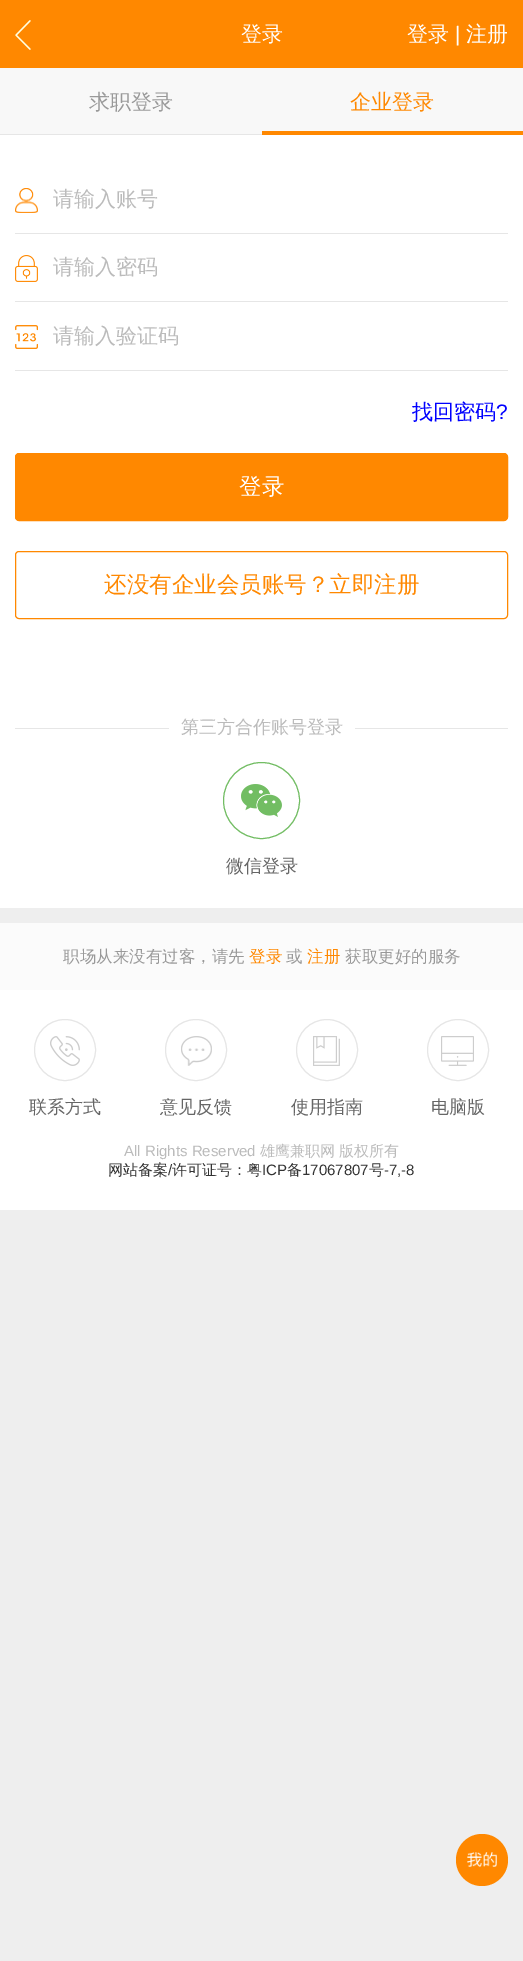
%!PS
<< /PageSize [523 1961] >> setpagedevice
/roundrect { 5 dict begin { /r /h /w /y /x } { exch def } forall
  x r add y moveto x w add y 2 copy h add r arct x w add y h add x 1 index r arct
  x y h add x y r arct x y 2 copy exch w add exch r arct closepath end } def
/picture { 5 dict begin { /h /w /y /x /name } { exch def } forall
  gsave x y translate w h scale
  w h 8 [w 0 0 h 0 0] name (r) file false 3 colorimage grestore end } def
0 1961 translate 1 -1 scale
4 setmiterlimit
0.933 setgray
0 0 523 1961 rectfill
1 0.533 0 setrgbcolor
0 0 523 68 rectfill
(img1.rgb) 15 20 16 30 picture
/WenQuanYiZenHei-Medium [21 0 0 -21 0 0] selectfont
1 setgray
241 41 moveto (登录) show
407 41 moveto (登录) show
/LiberationSans-Regular [21 0 0 -21 0 0] selectfont
455 41 moveto (|) show
/WenQuanYiZenHei-Medium [21 0 0 -21 0 0] selectfont
466 41 moveto (注册) show
0.973 setgray
0 68 523 66 rectfill
0.6 setgray
89 109 moveto (求职登录) show
1 0.533 0 setrgbcolor
350 109 moveto (企业登录) show
262 131 261 4 rectfill
0.902 setgray
0 134 262 1 rectfill
1 setgray
0 135 523 773 rectfill
0.902 setgray
15 370 493 1 rectfill
15 233 493 1 rectfill
(img2.rgb) 15 188 23 25 picture
0.733 setgray
53 206 moveto (请输入账号) show
0.902 setgray
15 301 493 1 rectfill
(img3.rgb) 15 255 23 27 picture
0.733 setgray
53 274 moveto (请输入密码) show
(img4.rgb) 15 325 23 24 picture
53 343 moveto (请输入验证码) show
0 0 1 setrgbcolor
412 419 moveto (找回密码) show
/LiberationSans-Regular [21 0 0 -21 0 0] selectfont
496 419 moveto (?) show
1 0.533 0 setrgbcolor
15.5 453.5 492 67 3.5 roundrect gsave fill grestore
stroke
/WenQuanYiZenHei-Medium [22.5 0 0 -22.5 0 0] selectfont
1 setgray
239 494 moveto (登录) show
1 0.533 0 setrgbcolor
15.5 551.5 492 67 3.5 roundrect stroke
104 592 moveto (还没有企业会员账号？立即注册) show
0.902 setgray
15 728 493 1 rectfill
1 setgray
169 728 186 1 rectfill
/WenQuanYiZenHei-Medium [18 0 0 -18 0 0] selectfont
0.733 setgray
181 733 moveto (第三方合作账号登录) show
(img5.rgb) 241 784 41 33 picture
0.447 0.741 0.388 setrgbcolor
newpath 261.5 800.5 38 0 360 arc closepath stroke
0.4 setgray
226 872 moveto (微信登录) show
0.984 setgray
0 923 523 67 rectfill
/WenQuanYiZenHei-Medium [16.5 0 0 -16.5 0 0] selectfont
0.6 setgray
63 962 moveto (职场从来没有过客，请先) show
1 0.533 0 setrgbcolor
249 962 moveto (登录) show
0.6 setgray
286 962 moveto (或) show
1 0.533 0 setrgbcolor
307 962 moveto (注册) show
0.6 setgray
345 962 moveto (获取更好的服务) show
1 setgray
0 990 523 220 rectfill
(img6.rgb) 50 1036 30 30 picture
0.902 setgray
newpath 65 1050 30.5 0 360 arc closepath stroke
/WenQuanYiZenHei-Medium [18 0 0 -18 0 0] selectfont
0.4 setgray
29 1113 moveto (联系方式) show
(img7.rgb) 181 1036 31 30 picture
0.902 setgray
newpath 196 1050 30.5 0 360 arc closepath stroke
0.4 setgray
160 1113 moveto (意见反馈) show
(img8.rgb) 313 1036 27 30 picture
0.902 setgray
newpath 327 1050 30.5 0 360 arc closepath stroke
0.4 setgray
291 1113 moveto (使用指南) show
(img9.rgb) 441 1036 33 30 picture
0.902 setgray
newpath 458 1050 30.5 0 360 arc closepath stroke
0.4 setgray
431 1113 moveto (电脑版) show
/LiberationSans-Regular [15 0 0 -15 0 0] selectfont
0.733 setgray
124 1156 moveto (All Rights Reserved) show
/WenQuanYiZenHei-Medium [15 0 0 -15 0 0] selectfont
260 1156 moveto (雄鹰兼职网) show
339 1156 moveto (版权所有) show
0.2 setgray
108 1175 moveto (网站备案) show
/LiberationSans-Regular [15 0 0 -15 0 0] selectfont
168 1175 moveto (/) show
/WenQuanYiZenHei-Medium [15 0 0 -15 0 0] selectfont
172 1175 moveto (许可证号：粤) show
/LiberationSans-Regular [15 0 0 -15 0 0] selectfont
262 1175 moveto (ICP) show
/WenQuanYiZenHei-Medium [15 0 0 -15 0 0] selectfont
287 1175 moveto (备) show
/LiberationSans-Regular [15 0 0 -15 0 0] selectfont
302 1175 moveto (17067807) show
/WenQuanYiZenHei-Medium [15 0 0 -15 0 0] selectfont
369 1175 moveto (号) show
/LiberationSans-Regular [15 0 0 -15 0 0] selectfont
384 1175 moveto (-7,-8) show
1 0.533 0 setrgbcolor
newpath 482 1860 26 0 360 arc closepath fill
(img10.rgb) 467 1852 30 15 picture
showpage
